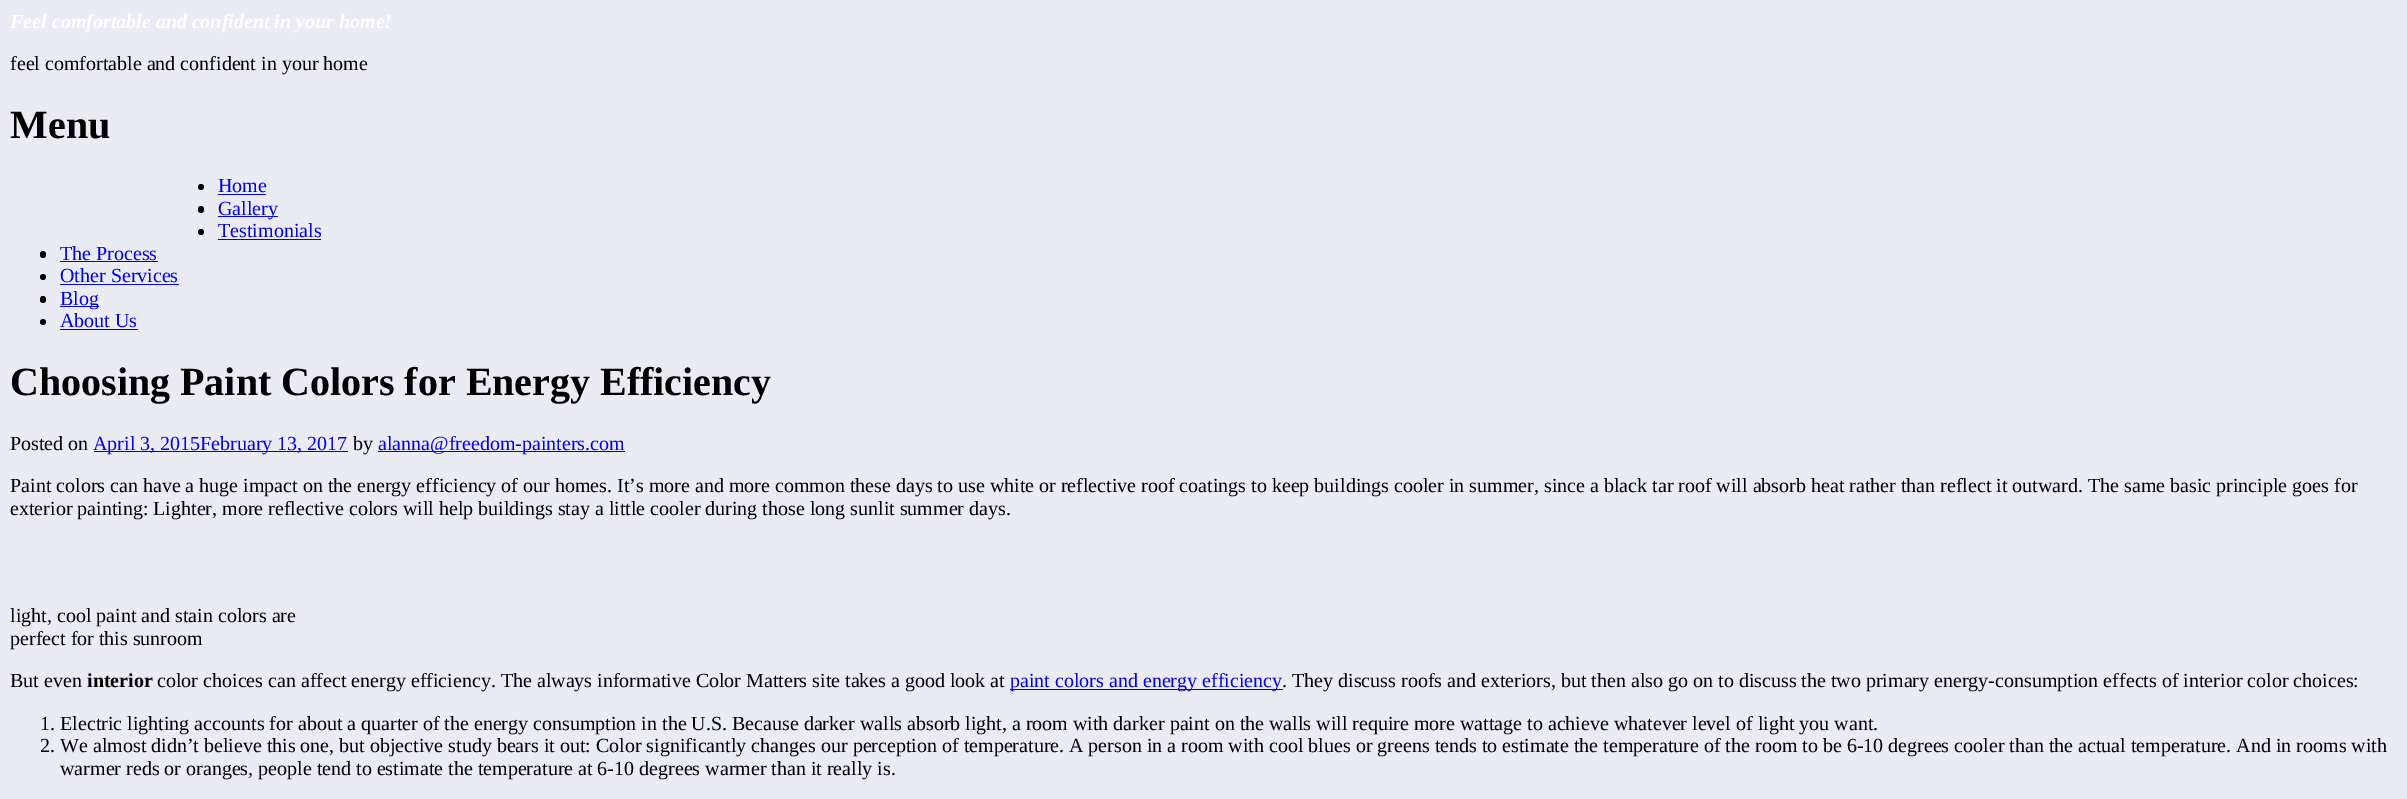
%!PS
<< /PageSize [2407 799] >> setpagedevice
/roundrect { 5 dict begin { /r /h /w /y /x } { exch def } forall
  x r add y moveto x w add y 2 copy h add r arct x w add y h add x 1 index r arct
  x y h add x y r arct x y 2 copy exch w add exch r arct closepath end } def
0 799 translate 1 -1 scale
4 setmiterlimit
0.922 0.922 0.957 setrgbcolor
0 0 2407 799 rectfill
/LiberationSerif-BoldItalic [20 0 0 -20 0 0] selectfont
1 setgray
10 28 moveto (Feel comfortable and confident in your home!) show
/LiberationSerif-Regular [20 0 0 -20 0 0] selectfont
0 setgray
10 70 moveto (feel comfortable and confident in your home) show
/LiberationSerif-Bold [40 0 0 -40 0 0] selectfont
10 138 moveto (Menu) show
newpath 201 187 3 0 360 arc closepath fill
/LiberationSerif-Regular [20 0 0 -20 0 0] selectfont
0 0 0.933 setrgbcolor
218 192 moveto (Home) show
218 194 48 1 rectfill
0 setgray
198 206 6 7 3 roundrect fill
0 0 0.933 setrgbcolor
218 216 60 1 rectfill
218 215 moveto (Gallery) show
0 setgray
newpath 201 232 3 0 360 arc closepath fill
0 0 0.933 setrgbcolor
218 237 moveto (Testimonials) show
218 239 103 1 rectfill
0 setgray
40 251 6 7 3 roundrect fill
0 0 0.933 setrgbcolor
60 260 moveto (The Process) show
60 261 98 1 rectfill
0 setgray
newpath 43 277 3 0 360 arc closepath fill
0 0 0.933 setrgbcolor
60 282 moveto (Other Services) show
60 284 119 1 rectfill
0 setgray
40 296 6 7 3 roundrect fill
0 0 0.933 setrgbcolor
60 306 39 1 rectfill
60 305 moveto (Blog) show
0 setgray
newpath 43 322 3 0 360 arc closepath fill
0 0 0.933 setrgbcolor
60 327 moveto (About Us) show
60 329 78 1 rectfill
/LiberationSerif-Bold [40 0 0 -40 0 0] selectfont
0 setgray
10 395 moveto (Choosing Paint Colors for Energy Efficiency) show
/LiberationSerif-Regular [20 0 0 -20 0 0] selectfont
10 450 moveto (Posted on) show
0 0 0.933 setrgbcolor
94 451 254 1 rectfill
93 450 moveto (April 3, 2015February 13, 2017) show
0 setgray
353 450 moveto (by) show
0 0 0.933 setrgbcolor
378 451 247 1 rectfill
378 450 moveto (alanna@freedom-painters.com) show
0 setgray
10 492 moveto (Paint colors can have a huge impact on the energy efficiency of our homes. It’s more and more common these days to use white or reflective roof coatings to keep buildings cooler in summer, since a black tar roof will absorb heat rather than reflect it outward. The same basic principle goes for) show
10 515 moveto (exterior painting: Lighter, more reflective colors will help buildings stay a little cooler during those long sunlit summer days.) show
10 622 moveto (light, cool paint and stain colors are) show
10 645 moveto (perfect for this sunroom) show
10 687 moveto (But even) show
/LiberationSerif-Bold [20 0 0 -20 0 0] selectfont
87 687 moveto (interior) show
/LiberationSerif-Regular [20 0 0 -20 0 0] selectfont
157 687 moveto (color choices can affect energy efficiency. The always informative Color Matters site takes a good look at) show
0 0 0.933 setrgbcolor
1010 689 273 1 rectfill
1010 687 moveto (paint colors and energy efficiency) show
0 setgray
1282 687 moveto (. They discuss roofs and exteriors, but then also go on to discuss the two primary energy-consumption effects of interior color choices:) show
40 730 moveto (1. Electric lighting accounts for about a quarter of the energy consumption in the U.S. Because darker walls absorb light, a room with darker paint on the walls will require more wattage to achieve whatever level of light you want.) show
40 752 moveto (2. We almost didn’t believe this one, but objective study bears it out: Color significantly changes our perception of temperature. A person in a room with cool blues or greens tends to estimate the temperature of the room to be 6-10 degrees cooler than the actual temperature. And in rooms with) show
60 775 moveto (warmer reds or oranges, people tend to estimate the temperature at 6-10 degrees warmer than it really is.) show
showpage
